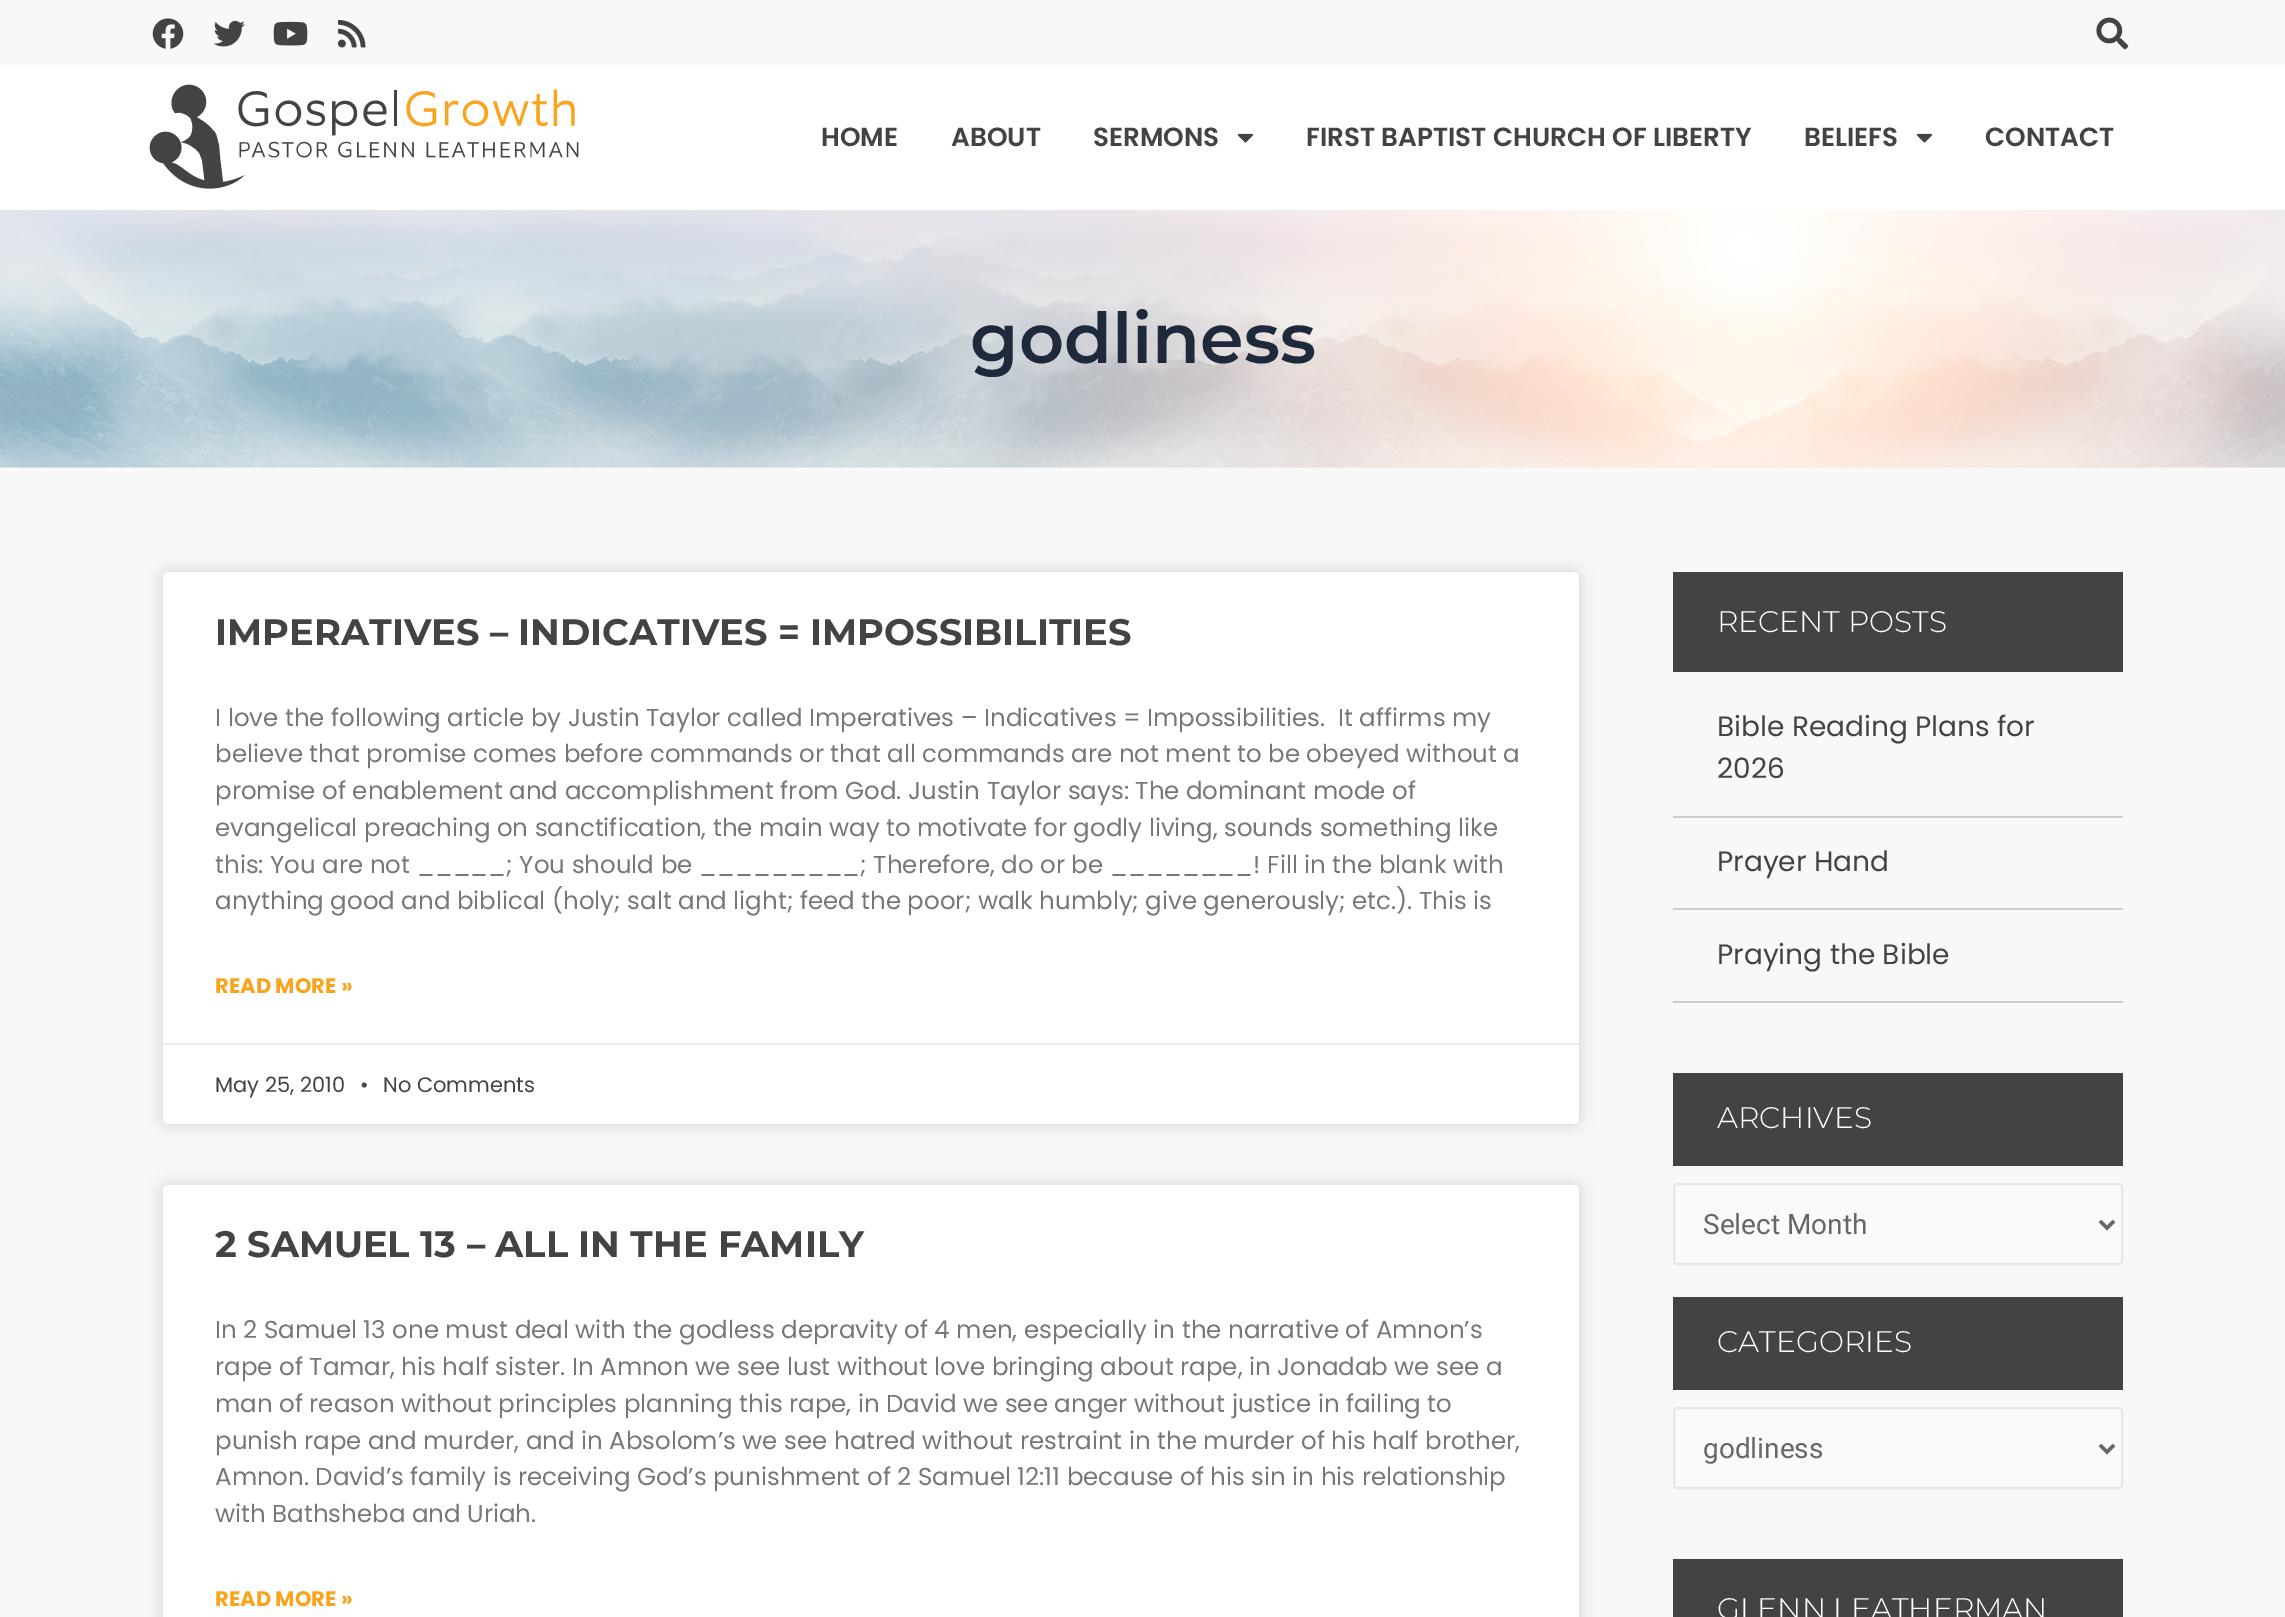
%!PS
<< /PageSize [2285 1617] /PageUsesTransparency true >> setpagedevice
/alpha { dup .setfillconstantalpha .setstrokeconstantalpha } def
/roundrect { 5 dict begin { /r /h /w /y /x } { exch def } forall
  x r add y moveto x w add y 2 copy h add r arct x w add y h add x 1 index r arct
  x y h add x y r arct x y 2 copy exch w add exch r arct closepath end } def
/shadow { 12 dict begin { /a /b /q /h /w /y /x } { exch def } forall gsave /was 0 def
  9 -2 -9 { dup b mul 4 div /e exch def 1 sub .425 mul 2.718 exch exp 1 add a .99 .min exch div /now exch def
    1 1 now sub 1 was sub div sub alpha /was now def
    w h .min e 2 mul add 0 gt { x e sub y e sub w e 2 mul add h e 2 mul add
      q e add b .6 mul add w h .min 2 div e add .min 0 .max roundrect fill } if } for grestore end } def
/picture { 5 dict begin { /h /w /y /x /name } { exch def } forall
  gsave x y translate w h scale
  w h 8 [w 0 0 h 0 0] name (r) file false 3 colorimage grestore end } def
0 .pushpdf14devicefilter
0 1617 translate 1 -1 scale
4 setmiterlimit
0.973 setgray
0 0 2285 1617 rectfill
(img1.rgb) 152 18 32 31 picture
(img2.rgb) 213 20 32 27 picture
(img3.rgb) 273 21 35 25 picture
(img4.rgb) 337 19 29 29 picture
(img5.rgb) 2096 17 33 33 picture
1 setgray
0 65 2285 145 rectfill
(img6.rgb) 149 84 430 105 picture
/Poppins-SemiBold [26.25 0 0 -26.25 0 0] selectfont
0.263 setgray
821 146 moveto (HOME) show
951 146 moveto (ABOUT) show
1093 146 moveto (SERMONS) show
(img7.rgb) 1237 133 16 10 picture
1306 146 moveto (FIRST BAPTIST CHURCH OF LIBERTY) show
1804 146 moveto (BELIEFS) show
(img7.rgb) 1916 133 16 10 picture
1985 146 moveto (CONTACT) show
(img8.rgb) 0 210 2285 258 picture
/Montserrat-SemiBold [70 0 0 -70 0 0] selectfont
0.118 0.161 0.231 setrgbcolor
970 363 moveto (godliness) show
0 setgray
163 572 1416 552 5 9 0.15 shadow
1 setgray
163 572 1416 552 5 roundrect fill
/Montserrat-Bold [36.75 0 0 -36.75 0 0] selectfont
0.263 setgray
215 645 moveto (IMPERATIVES – INDICATIVES = IMPOSSIBILITIES) show
/Poppins-Regular [24.5 0 0 -24.5 0 0] selectfont
0.467 setgray
215 726 moveto (I love the following article by Justin Taylor called Imperatives – Indicatives = Impossibilities.  It affirms my) show
215 762 moveto (believe that promise comes before commands or that all commands are not ment to be obeyed without a) show
215 799 moveto (promise of enablement and accomplishment from God. Justin Taylor says: The dominant mode of) show
215 836 moveto (evangelical preaching on sanctification, the main way to motivate for godly living, sounds something like) show
215 873 moveto (this: You are not _____; You should be _________; Therefore, do or be ________! Fill in the blank with) show
215 909 moveto (anything good and biblical \(holy; salt and light; feed the poor; walk humbly; give generously; etc.\). This is) show
/Poppins-Bold [21 0 0 -21 0 0] selectfont
0.973 0.643 0.118 setrgbcolor
215 993 moveto (READ MORE ») show
0.918 setgray
163 1043 1416 2 rectfill
/Poppins-Regular [21 0 0 -21 0 0] selectfont
0.263 setgray
215 1092 moveto (May 25, 2010) show
360 1092 moveto (•) show
383 1092 moveto (No Comments) show
0 setgray
163 1185 1416 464 5 9 0.15 shadow
1 setgray
163 1185 1416 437 5 roundrect fill
/Montserrat-Bold [36.75 0 0 -36.75 0 0] selectfont
0.263 setgray
215 1257 moveto (2 SAMUEL 13 – ALL IN THE FAMILY) show
/Poppins-Regular [24.5 0 0 -24.5 0 0] selectfont
0.467 setgray
215 1338 moveto (In 2 Samuel 13 one must deal with the godless depravity of 4 men, especially in the narrative of Amnon’s) show
215 1375 moveto (rape of Tamar, his half sister. In Amnon we see lust without love bringing about rape, in Jonadab we see a) show
215 1412 moveto (man of reason without principles planning this rape, in David we see anger without justice in failing to) show
215 1449 moveto (punish rape and murder, and in Absolom’s we see hatred without restraint in the murder of his half brother,) show
215 1485 moveto (Amnon. David’s family is receiving God’s punishment of 2 Samuel 12:11 because of his sin in his relationship) show
215 1522 moveto (with Bathsheba and Uriah.) show
/Poppins-Bold [21 0 0 -21 0 0] selectfont
0.973 0.643 0.118 setrgbcolor
215 1606 moveto (READ MORE ») show
0.263 setgray
1673 572 450 100 rectfill
/Montserrat-Light [29.75 0 0 -29.75 0 0] selectfont
1 setgray
1717 632 moveto (RECENT POSTS) show
0.8 setgray
1673 816 450 2 rectfill
/Poppins-Regular [28 0 0 -28 0 0] selectfont
0.263 setgray
1717 736 moveto (Bible Reading Plans for) show
1717 778 moveto (2026) show
0.8 setgray
1673 908 450 2 rectfill
0.263 setgray
1717 871 moveto (Prayer Hand) show
0.8 setgray
1673 1001 450 2 rectfill
0.263 setgray
1717 964 moveto (Praying the Bible) show
1673 1073 450 93 rectfill
/Montserrat-Light [29.75 0 0 -29.75 0 0] selectfont
1 setgray
1717 1128 moveto (ARCHIVES) show
0.976 0.98 0.984 setrgbcolor
1674 1184 448 80 3 roundrect gsave fill grestore
0.886 0.91 0.941 setrgbcolor
2 setlinewidth
stroke
0.4 setgray
3.5 setlinewidth
newpath 2100 1221 moveto 2107 1228 lineto 2114 1221 lineto stroke
/Roboto-Regular [28 0 0 -28 0 0] selectfont
1703 1234 moveto (Select Month) show
0.263 setgray
1673 1297 450 93 rectfill
/Montserrat-Light [29.75 0 0 -29.75 0 0] selectfont
1 setgray
1717 1352 moveto (CATEGORIES) show
0.976 0.98 0.984 setrgbcolor
1674 1408 448 80 3 roundrect gsave fill grestore
0.886 0.91 0.941 setrgbcolor
2 setlinewidth
stroke
0.4 setgray
3.5 setlinewidth
newpath 2100 1445 moveto 2107 1452 lineto 2114 1445 lineto stroke
/Roboto-Regular [28 0 0 -28 0 0] selectfont
1703 1458 moveto (godliness) show
0.263 setgray
1673 1559 450 58 rectfill
/Montserrat-Light [29.75 0 0 -29.75 0 0] selectfont
1 setgray
1717 1619 moveto (GLENN LEATHERMAN) show
.poppdf14devicefilter showpage
